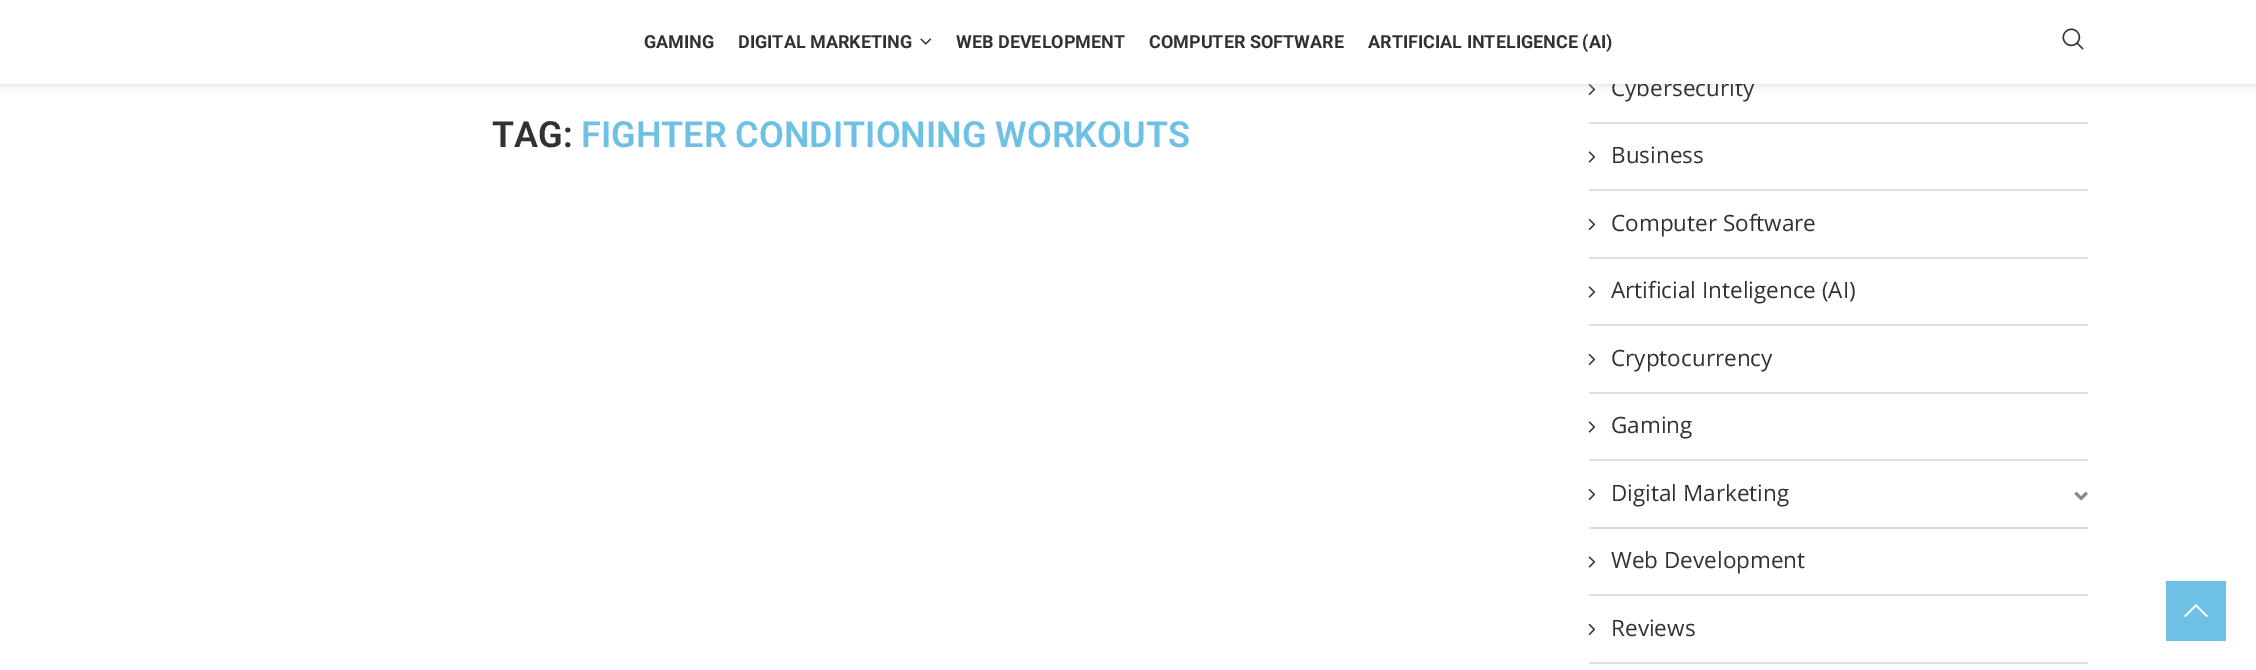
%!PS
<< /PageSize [2256 670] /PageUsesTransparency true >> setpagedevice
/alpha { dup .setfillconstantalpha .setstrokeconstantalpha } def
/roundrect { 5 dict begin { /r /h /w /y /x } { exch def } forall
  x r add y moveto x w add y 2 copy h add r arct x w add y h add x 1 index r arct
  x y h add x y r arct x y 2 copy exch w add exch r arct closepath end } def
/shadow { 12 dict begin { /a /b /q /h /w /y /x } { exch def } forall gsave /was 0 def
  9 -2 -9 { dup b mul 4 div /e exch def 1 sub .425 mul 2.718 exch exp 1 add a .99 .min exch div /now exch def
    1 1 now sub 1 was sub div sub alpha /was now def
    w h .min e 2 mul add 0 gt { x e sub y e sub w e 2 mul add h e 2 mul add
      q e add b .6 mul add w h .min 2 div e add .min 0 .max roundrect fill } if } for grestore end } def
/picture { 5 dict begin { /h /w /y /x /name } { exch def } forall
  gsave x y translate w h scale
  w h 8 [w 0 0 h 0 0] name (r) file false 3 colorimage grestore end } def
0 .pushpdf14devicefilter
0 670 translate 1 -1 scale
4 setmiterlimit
1 setgray
0 0 2256 670 rectfill
(img3.rgb) 1588 84 8 12 picture
0.745 setgray
0 2 2256 84 0 4 0.46 shadow
/OpenSans-Regular [22.5 0 0 -22.5 0 0] selectfont
0.192 setgray
1611 96 moveto (Cybersecurity) show
1 setgray
0 0 2256 84 rectfill
/Roboto-Bold [18 0 0 -18 0 0] selectfont
0.192 setgray
644 48 moveto (GAMING) show
738 48 moveto (DIGITAL MARKETING) show
(img1.rgb) 920 38 12 7 picture
956 48 moveto (WEB DEVELOPMENT) show
1149 48 moveto (COMPUTER SOFTWARE) show
1368 48 moveto (ARTIFICIAL INTELIGENCE \(AI\)) show
(img2.rgb) 2062 28 22 22 picture
/Roboto-SemiBold [36 0 0 -36 0 0] selectfont
492 147 moveto (TAG:) show
0.431 0.757 0.894 setrgbcolor
581 147 moveto (FIGHTER CONDITIONING WORKOUTS) show
0.871 setgray
1589 122 499 2 rectfill
1589 189 499 2 rectfill
(img4.rgb) 1588 151 8 12 picture
/OpenSans-Regular [22.5 0 0 -22.5 0 0] selectfont
0.192 setgray
1611 163 moveto (Business) show
0.871 setgray
1589 257 499 2 rectfill
(img5.rgb) 1588 218 8 13 picture
0.192 setgray
1611 231 moveto (Computer Software) show
0.871 setgray
1589 324 499 2 rectfill
(img4.rgb) 1588 286 8 12 picture
0.192 setgray
1611 298 moveto (Artificial Inteligence \(AI\)) show
0.871 setgray
1589 392 499 2 rectfill
(img5.rgb) 1588 353 8 13 picture
0.192 setgray
1611 366 moveto (Cryptocurrency) show
0.871 setgray
1589 459 499 2 rectfill
(img4.rgb) 1588 421 8 12 picture
0.192 setgray
1611 433 moveto (Gaming) show
0.871 setgray
1589 527 499 2 rectfill
(img5.rgb) 1588 488 8 13 picture
0.192 setgray
1611 501 moveto (Digital Marketing) show
(img6.rgb) 2074 491 14 10 picture
0.871 setgray
1589 594 499 2 rectfill
(img4.rgb) 1588 556 8 12 picture
0.192 setgray
1611 568 moveto (Web Development) show
0.871 setgray
1589 662 499 2 rectfill
(img5.rgb) 1588 623 8 13 picture
0.192 setgray
1611 636 moveto (Reviews) show
0.431 0.757 0.894 setrgbcolor
2166 581 60 60 rectfill
1 setgray
newpath 2196 604 moveto 2184 616 lineto 2185.5 617 lineto 2196 606.5 lineto 2206.5 617 lineto 2208 616 lineto closepath fill
.poppdf14devicefilter showpage
